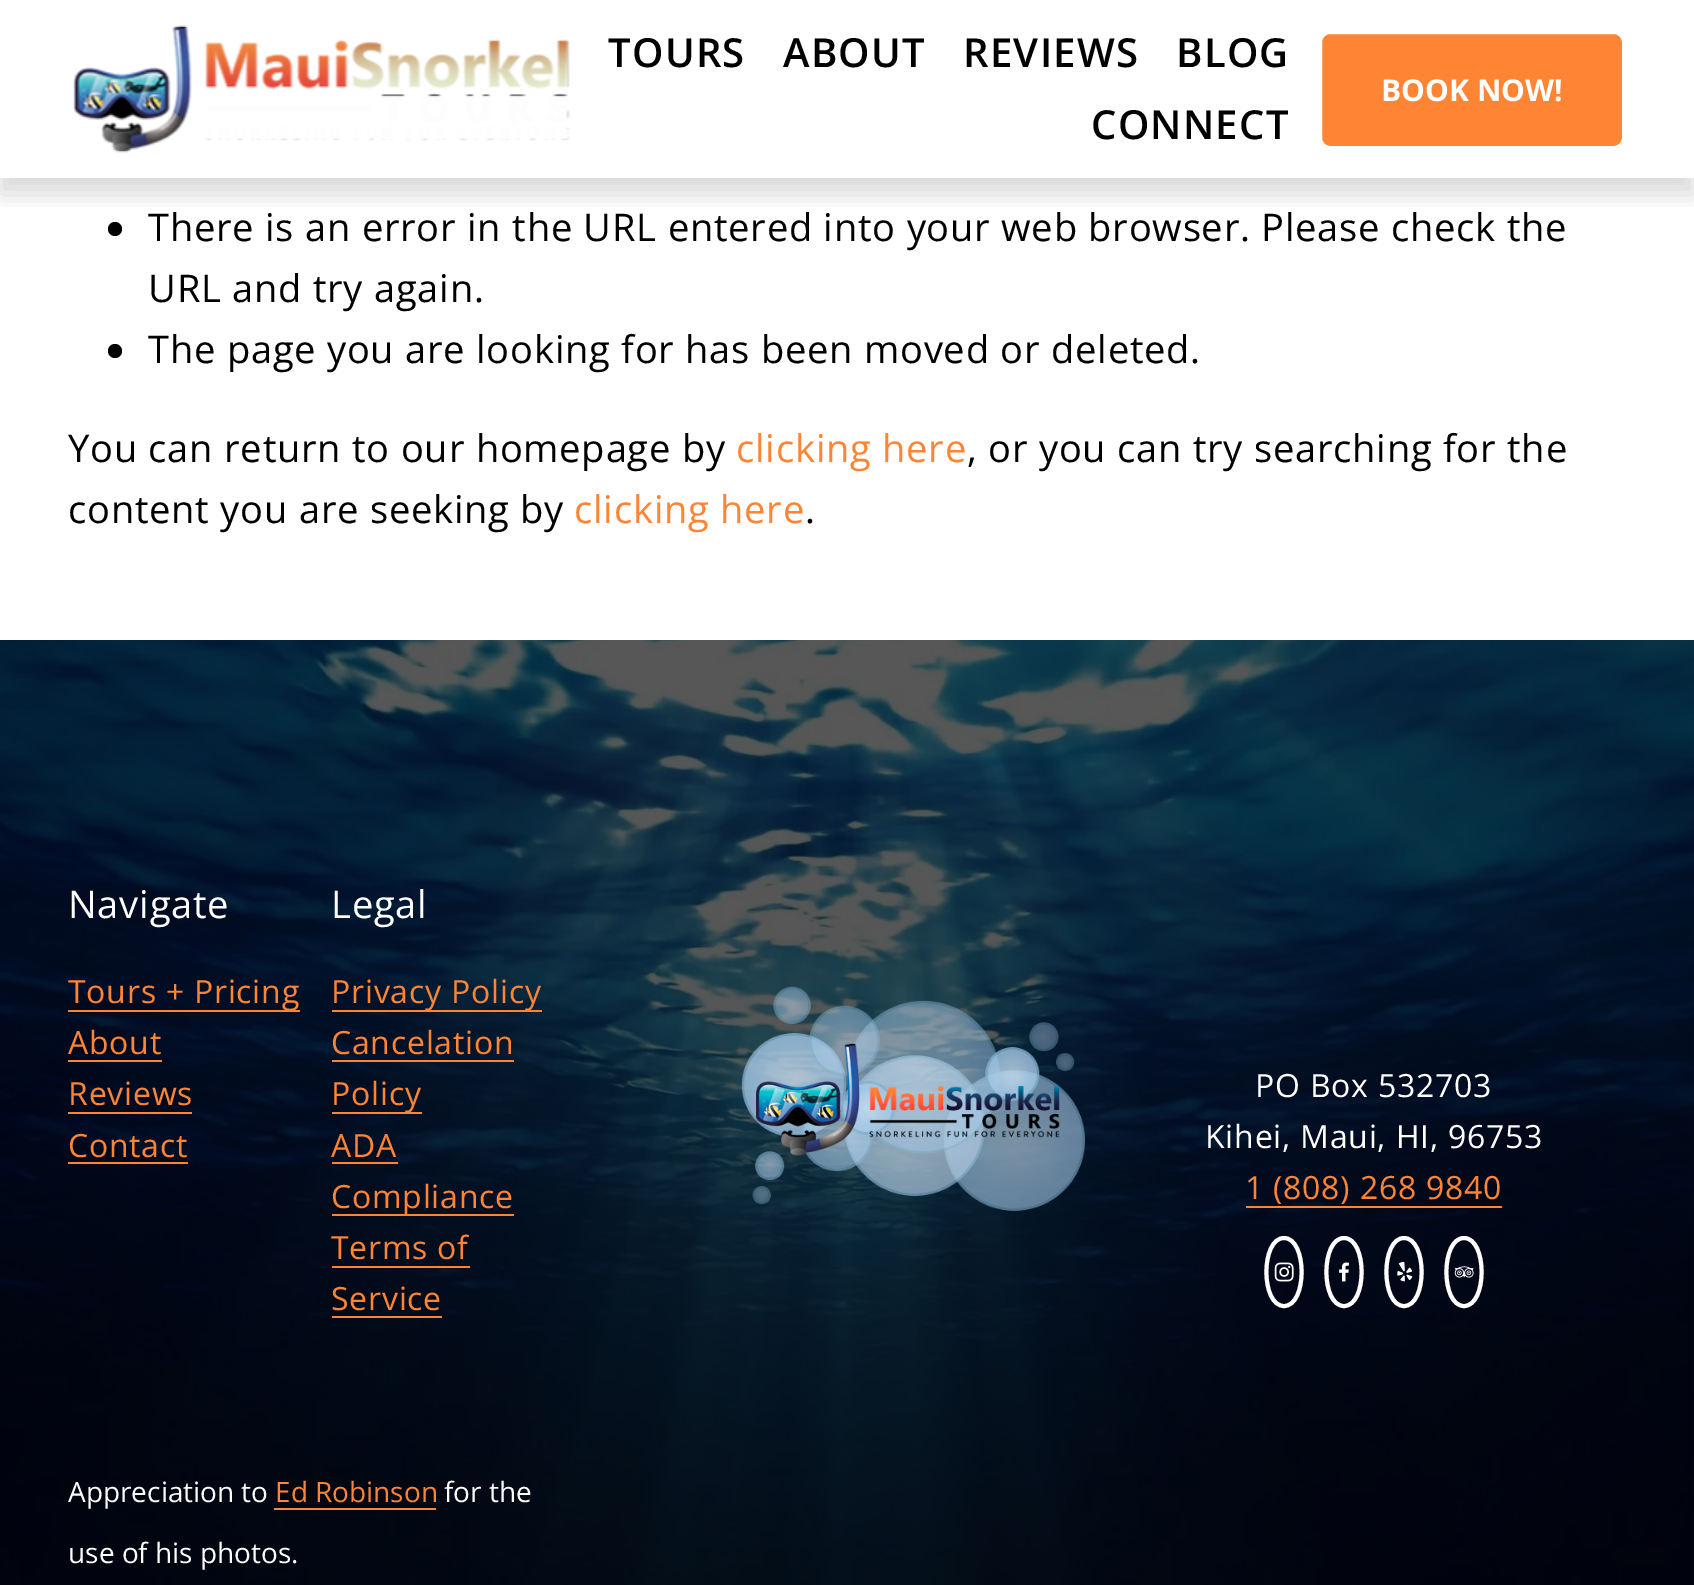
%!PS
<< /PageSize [1694 1585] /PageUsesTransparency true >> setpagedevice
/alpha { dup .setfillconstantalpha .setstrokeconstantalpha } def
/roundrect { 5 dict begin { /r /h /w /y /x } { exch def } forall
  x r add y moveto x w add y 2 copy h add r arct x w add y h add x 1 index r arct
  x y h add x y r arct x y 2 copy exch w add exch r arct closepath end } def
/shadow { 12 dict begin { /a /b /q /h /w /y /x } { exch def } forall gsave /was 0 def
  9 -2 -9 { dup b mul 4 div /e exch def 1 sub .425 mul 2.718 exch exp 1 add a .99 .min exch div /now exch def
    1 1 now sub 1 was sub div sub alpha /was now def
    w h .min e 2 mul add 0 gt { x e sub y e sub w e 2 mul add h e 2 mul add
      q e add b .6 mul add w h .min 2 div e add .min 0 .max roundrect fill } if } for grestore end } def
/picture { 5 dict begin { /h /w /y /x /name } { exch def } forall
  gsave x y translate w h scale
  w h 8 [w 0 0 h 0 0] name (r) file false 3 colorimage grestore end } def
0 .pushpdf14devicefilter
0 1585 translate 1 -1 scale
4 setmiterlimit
1 setgray
0 0 1694 1585 rectfill
0 setgray
newpath 115 229 7 0 360 arc closepath fill
gsave
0 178 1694 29 rectclip
0 16 1694 178 0 12 0.15 shadow
grestore
(img1.rgb) 73 25 497 128 picture
/OpenSans-SemiBold [40 0 0 -40 0 0] selectfont
608 67 moveto 1.25 0 (TOURS) ashow
783 67 moveto 1.25 0 (ABOUT) ashow
963 67 moveto 1.25 0 (REVIEWS) ashow
1176 67 moveto 1.25 0 (BLOG) ashow
1091 139 moveto 1.25 0 (CONNECT) ashow
1 0.518 0.2 setrgbcolor
1320 32 304 116 10 roundrect gsave fill grestore
1 setgray
4 setlinewidth
stroke
/OpenSans-Bold [30 0 0 -30 0 0] selectfont
1381 101 moveto (BOOK NOW!) show
/OpenSans-Regular [38.1 0 0 -38.1 0 0] selectfont
0 setgray
148 241 moveto 0.75 0 (There is an error in the URL entered into your web browser. Please check the) ashow
148 302 moveto 0.75 0 (URL and try again.) ashow
newpath 115 351 7 0 360 arc closepath fill
148 363 moveto 0.75 0 (The page you are looking for has been moved or deleted.) ashow
68 462 moveto 0.75 0 (You can return to our homepage by) ashow
1 0.518 0.2 setrgbcolor
736 462 moveto 0.75 0 (clicking here) ashow
0 setgray
967 462 moveto 0.75 0 (, or you can try searching for the) ashow
68 523 moveto 0.75 0 (content you are seeking by) ashow
1 0.518 0.2 setrgbcolor
574 523 moveto 0.75 0 (clicking here) ashow
0 setgray
805 523 moveto 0.75 0 (.) ashow
(img2.rgb) 0 640 1694 945 picture
1 setgray
68 918 moveto 0.75 0 (Navigate) ashow
1 0.518 0.2 setrgbcolor
68 1010 232 2 rectfill
/OpenSans-Regular [32 0 0 -32 0 0] selectfont
68 1003 moveto 0.75 0 (Tours + Pricing) ashow
68 1054 moveto 0.75 0 (About) ashow
68 1060 94 2 rectfill
68 1105 moveto 0.75 0 (Reviews) ashow
68 1112 124 2 rectfill
68 1157 moveto 0.75 0 (Contact) ashow
68 1162 120 2 rectfill
/OpenSans-Regular [38.1 0 0 -38.1 0 0] selectfont
1 setgray
331 918 moveto 0.75 0 (Legal) ashow
1 0.518 0.2 setrgbcolor
332 1010 210 2 rectfill
/OpenSans-Regular [32 0 0 -32 0 0] selectfont
331 1003 moveto 0.75 0 (Privacy Policy) ashow
331 1054 moveto 0.75 0 (Cancelation) ashow
332 1060 182 2 rectfill
332 1112 90 2 rectfill
331 1105 moveto 0.75 0 (Policy) ashow
331 1157 moveto 0.75 0 (ADA) ashow
332 1162 66 2 rectfill
332 1214 182 2 rectfill
331 1208 moveto 0.75 0 (Compliance) ashow
331 1259 moveto 0.75 0 (Terms of) ashow
332 1266 138 2 rectfill
331 1310 moveto 0.75 0 (Service) ashow
332 1316 110 2 rectfill
(img3.rgb) 741 986 344 225 picture
1 setgray
1255 1097 moveto 0.75 0 (PO Box 532703) ashow
1205 1148 moveto 0.75 0 (Kihei, Maui, HI, 96753) ashow
1 0.518 0.2 setrgbcolor
1245 1199 moveto 0.75 0 (1 \(808\) 268 9840) ashow
1246 1206 256 2 rectfill
1 setgray
newpath 1284 1238 moveto 1307.5 1238 1307.5 1306 1284 1306 curveto 1260.5 1306 1260.5 1238 1284 1238 curveto closepath stroke
(img4.rgb) 1274 1262 20 20 picture
newpath 1344 1238 moveto 1367.5 1238 1367.5 1306 1344 1306 curveto 1320.5 1306 1320.5 1238 1344 1238 curveto closepath stroke
(img5.rgb) 1339 1262 10 20 picture
newpath 1404 1238 moveto 1427.5 1238 1427.5 1306 1404 1306 curveto 1380.5 1306 1380.5 1238 1404 1238 curveto closepath stroke
(img6.rgb) 1397 1261 16 21 picture
newpath 1464 1238 moveto 1487.5 1238 1487.5 1306 1464 1306 curveto 1440.5 1306 1440.5 1238 1464 1238 curveto closepath stroke
(img7.rgb) 1454 1266 20 12 picture
/OpenSans-Regular [28 0 0 -28 0 0] selectfont
68 1502 moveto (Appreciation to) show
1 0.518 0.2 setrgbcolor
275 1502 moveto (Ed Robinson) show
274 1508 162 2 rectfill
1 setgray
444 1502 moveto (for the) show
68 1563 moveto (use of his photos.) show
.poppdf14devicefilter showpage
